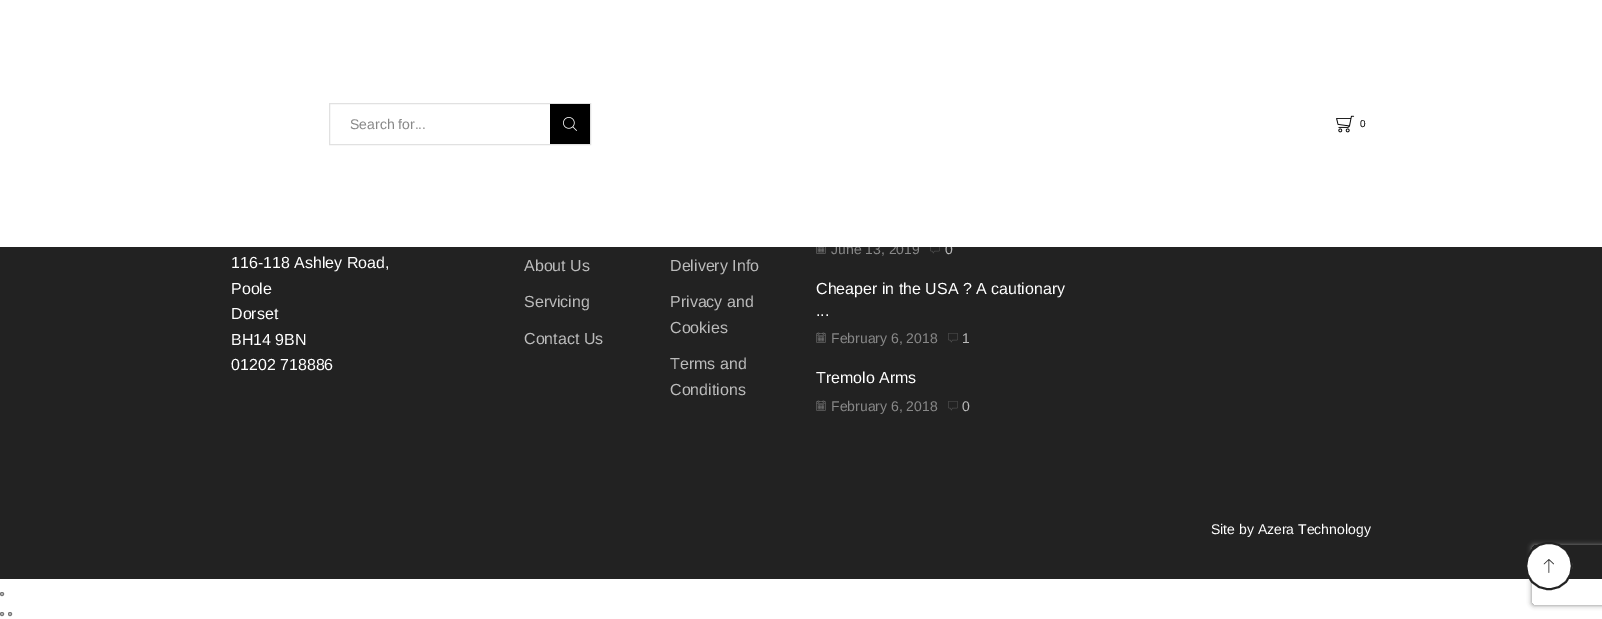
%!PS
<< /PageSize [1602 619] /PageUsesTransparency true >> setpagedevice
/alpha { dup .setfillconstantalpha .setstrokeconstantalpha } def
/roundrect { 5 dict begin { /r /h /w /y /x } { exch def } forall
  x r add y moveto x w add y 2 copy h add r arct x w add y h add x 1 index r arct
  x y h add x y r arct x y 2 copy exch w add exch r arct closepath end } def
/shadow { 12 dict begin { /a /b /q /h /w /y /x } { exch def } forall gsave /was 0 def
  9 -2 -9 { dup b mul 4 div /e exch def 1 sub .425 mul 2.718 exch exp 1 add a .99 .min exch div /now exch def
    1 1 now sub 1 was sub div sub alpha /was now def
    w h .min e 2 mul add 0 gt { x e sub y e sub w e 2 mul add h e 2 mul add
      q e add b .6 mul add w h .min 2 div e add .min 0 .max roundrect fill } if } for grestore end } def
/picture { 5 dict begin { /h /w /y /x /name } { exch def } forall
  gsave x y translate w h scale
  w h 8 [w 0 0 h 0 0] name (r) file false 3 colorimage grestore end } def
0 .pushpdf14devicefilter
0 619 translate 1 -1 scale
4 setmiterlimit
1 setgray
0 0 1602 619 rectfill
0.133 setgray
0 247 1602 332 rectfill
/LiberationSans-Regular [14 0 0 -14 0 0] selectfont
0.533 setgray
831 254 moveto (June 13, 2019) show
0.733 setgray
945 254 moveto (0) show
1 setgray
833 244 119 3 rectfill
0.882 setgray
329.5 103.5 261 41 rectstroke
0.533 setgray
350 129 moveto (Search for...) show
0 setgray
550 104 40 40 rectfill
(img1.rgb) 563 117 14 14 picture
(img2.rgb) 1336 115 19 18 picture
/LiberationSans-Regular [10 0 0 -10 0 0] selectfont
1360 127 moveto (0) show
/LiberationSans-Regular [16 0 0 -16 0 0] selectfont
1 setgray
231 268 moveto (116-118 Ashley Road,) show
231 294 moveto (Poole) show
231 319 moveto (Dorset) show
231 345 moveto (BH14 9BN) show
231 370 moveto (01202 718886) show
0.733 setgray
524 271 moveto (About Us) show
524 307 moveto (Servicing) show
524 344 moveto (Contact Us) show
670 271 moveto (Delivery Info) show
670 307 moveto (Privacy and) show
670 333 moveto (Cookies) show
670 369 moveto (Terms and) show
670 395 moveto (Conditions) show
(img3.rgb) 816 247 10 7 picture
(img4.rgb) 930 247 10 7 picture
1 setgray
816 294 moveto (Cheaper in the USA ? A cautionary) show
816 316 moveto (...) show
(img5.rgb) 816 332 10 11 picture
/LiberationSans-Regular [14 0 0 -14 0 0] selectfont
0.533 setgray
831 343 moveto (February 6, 2018) show
(img6.rgb) 948 333 10 10 picture
0.733 setgray
962 343 moveto (1) show
/LiberationSans-Regular [16 0 0 -16 0 0] selectfont
1 setgray
816 383 moveto (Tremolo Arms) show
(img5.rgb) 816 400 10 11 picture
/LiberationSans-Regular [14 0 0 -14 0 0] selectfont
0.533 setgray
831 411 moveto (February 6, 2018) show
(img6.rgb) 948 401 10 10 picture
0.733 setgray
962 411 moveto (0) show
1 setgray
1211 534 moveto (Site by Azera Technology) show
gsave
newpath 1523 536 moveto 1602 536 lineto 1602 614 lineto 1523 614 lineto closepath 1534 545 moveto 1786 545 lineto 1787 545 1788 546 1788 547 curveto 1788 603 lineto 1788 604 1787 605 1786 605 curveto 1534 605 lineto 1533 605 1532 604 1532 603 curveto 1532 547 lineto 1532 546 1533 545 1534 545 curveto closepath eoclip newpath
0.502 setgray
1532 545 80 60 2 2.5 1 shadow
grestore
newpath 1549 566 22.5 0 360 arc closepath gsave fill grestore
0.882 setgray
stroke
0.133 setgray
1.9 setlinewidth
newpath 1549 543 moveto 1579.5 543 1579.5 589 1549 589 curveto 1518.5 589 1518.5 543 1549 543 curveto stroke
(img7.rgb) 1543 559 11 14 picture
0.937 setgray
newpath 2 594 1.5 0 360 arc closepath gsave fill grestore
0.463 setgray
1 setlinewidth
stroke
0.937 setgray
newpath 2 614 1.5 0 360 arc closepath gsave fill grestore
0.463 setgray
stroke
0.937 setgray
newpath 10 614 1.5 0 360 arc closepath gsave fill grestore
0.463 setgray
stroke
.poppdf14devicefilter showpage
